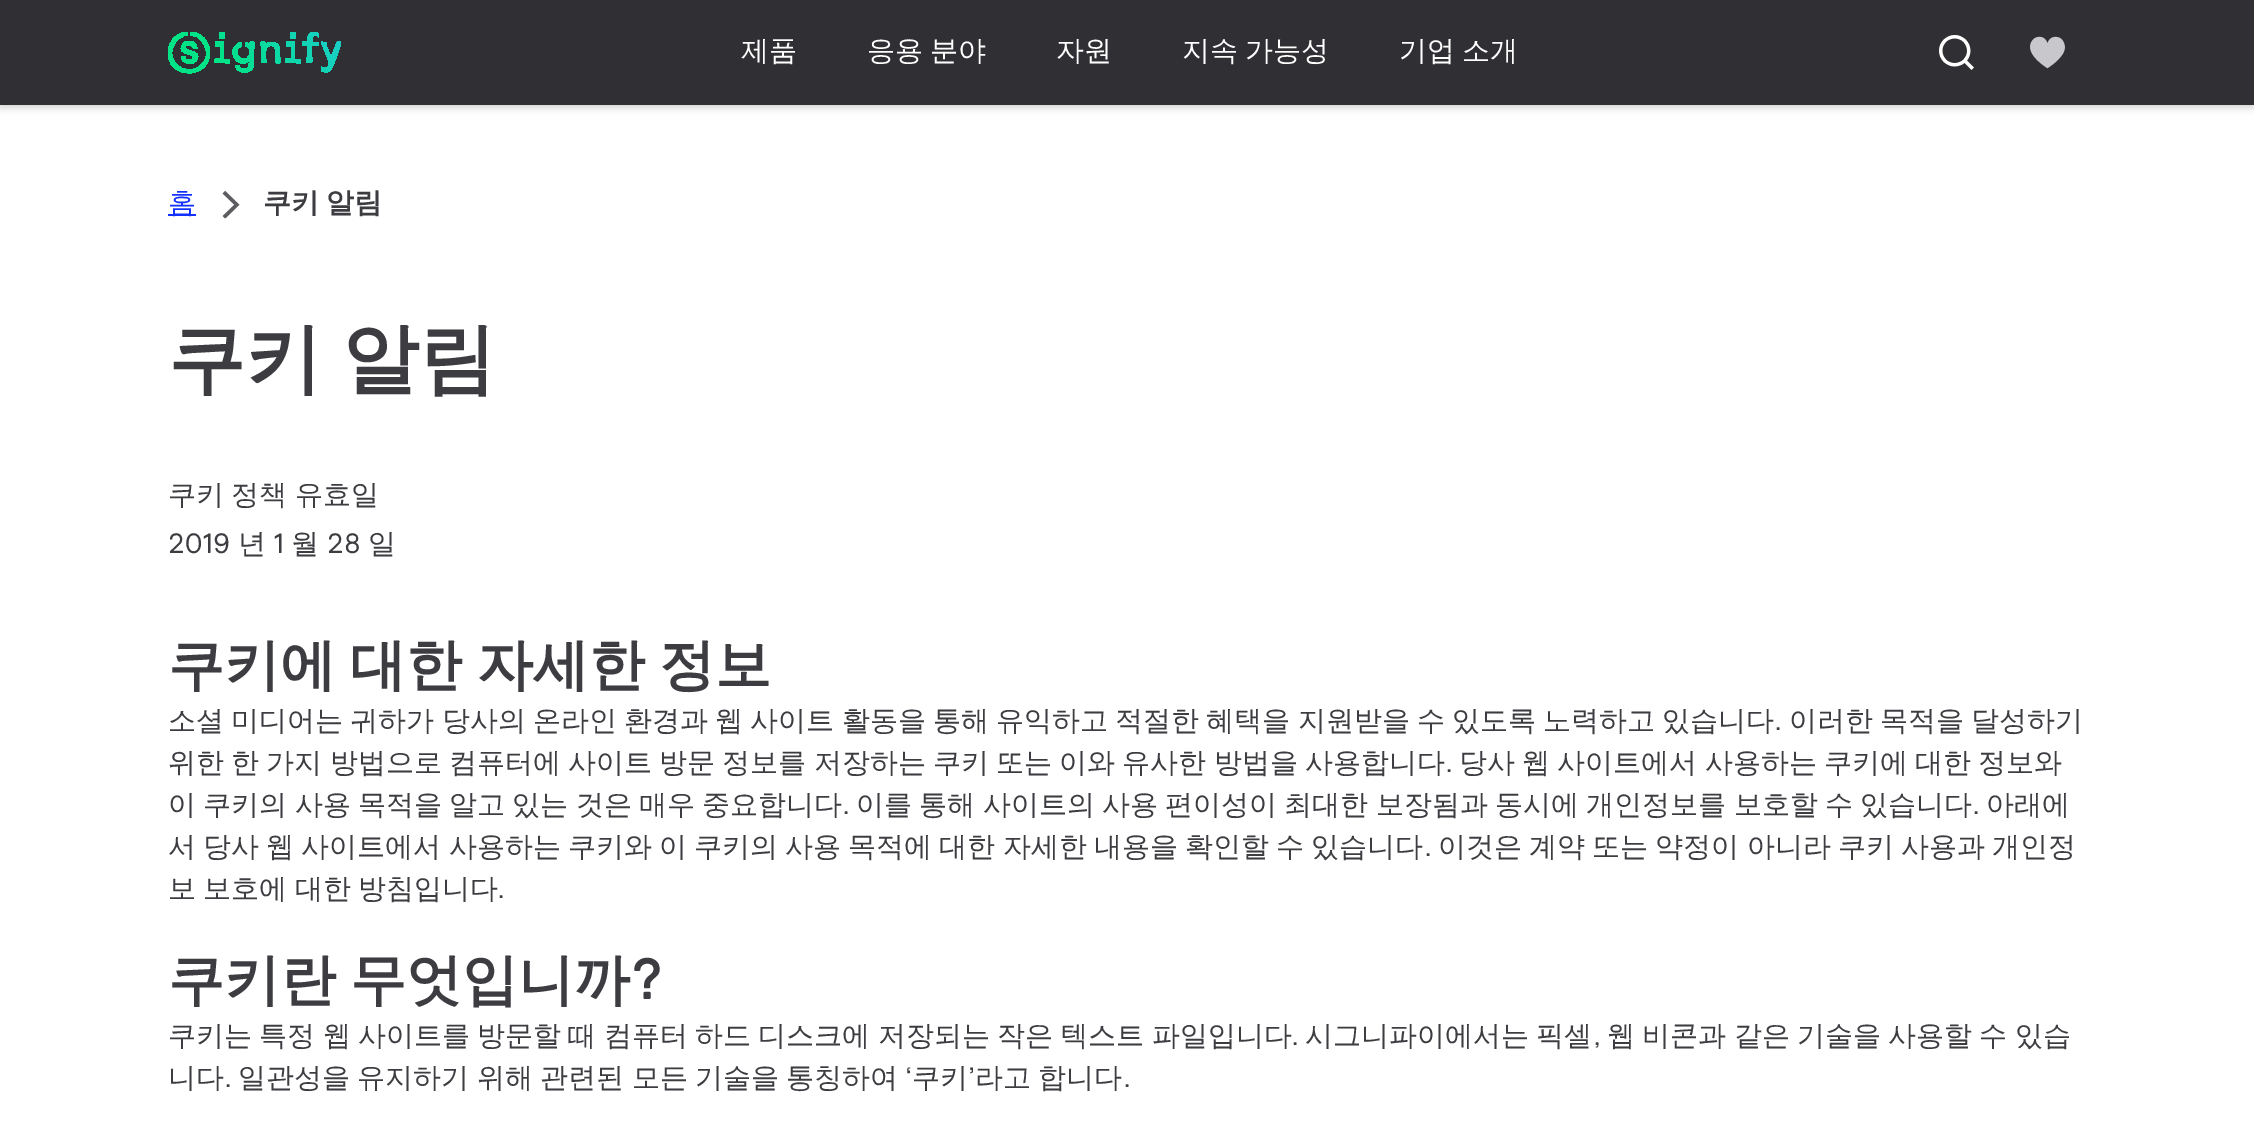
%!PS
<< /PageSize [2254 1136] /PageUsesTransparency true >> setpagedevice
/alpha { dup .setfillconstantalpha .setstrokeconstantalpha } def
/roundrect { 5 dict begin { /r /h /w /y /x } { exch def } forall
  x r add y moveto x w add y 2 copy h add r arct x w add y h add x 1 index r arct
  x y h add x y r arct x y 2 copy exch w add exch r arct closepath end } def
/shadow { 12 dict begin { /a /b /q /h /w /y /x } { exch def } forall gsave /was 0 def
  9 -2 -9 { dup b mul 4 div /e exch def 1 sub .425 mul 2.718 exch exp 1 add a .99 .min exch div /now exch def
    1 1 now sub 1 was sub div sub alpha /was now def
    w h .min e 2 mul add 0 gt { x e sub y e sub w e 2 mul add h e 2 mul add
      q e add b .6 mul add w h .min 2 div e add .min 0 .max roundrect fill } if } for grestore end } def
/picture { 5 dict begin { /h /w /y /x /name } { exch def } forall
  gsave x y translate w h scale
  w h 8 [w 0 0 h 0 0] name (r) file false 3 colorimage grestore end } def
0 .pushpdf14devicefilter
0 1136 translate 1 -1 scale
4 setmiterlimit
1 setgray
0 0 2254 1136 rectfill
0 setgray
0 4 2254 105 0 3.5 0.1 shadow
0 0 2254 105 0 3.5 0.1 shadow
0.188 0.188 0.204 setrgbcolor
0 0 2254 105 rectfill
gsave newpath 210 53 moveto 210 42 202 32 191 32 curveto 191 38 190 34 197 37 curveto 204 41 207 49 206 56 curveto 202 76 172 73 172 53 curveto 172 45 177 39 184 36 curveto 188 35 187 37 187 32 curveto 180 32 174 36 171 42 curveto 168 46 168 52 168 56 curveto 172 81 210 78 210 53 curveto closepath 329 62 moveto 321 42 lineto 321 41 322 42 323 42 curveto 327 42 326 42 327 47 curveto 331 57 lineto 335 47 lineto 337 42 336 41 341 42 curveto 341 45 334 64 332 68 curveto 331 69 330 71 328 72 curveto 327 72 326 73 324 72 curveto 322 72 321 71 321 69 curveto 321 68 321 66 322 67 curveto 325 69 327 68 328 66 curveto closepath 303 46 moveto 302 44 lineto 302 40 303 42 307 42 curveto 307 27 319 33 319 34 curveto 319 37 lineto 319 38 317 36 317 36 curveto 312 34 312 38 312 42 curveto 316 42 lineto 319 42 318 42 318 44 curveto 318 46 319 46 316 46 curveto 312 46 lineto 312 57 lineto 312 62 313 63 309 63 curveto 305 63 307 62 307 57 curveto 307 46 lineto closepath 222 39 moveto 218 39 218 32 222 32 curveto 226 32 226 39 222 39 curveto closepath 293 39 moveto 289 39 289 32 293 32 curveto 297 32 297 39 293 39 curveto closepath 193 48 moveto 192 45 188 44 186 46 curveto 181 52 203 49 197 60 curveto 196 62 193 63 191 64 curveto 187 64 182 62 181 58 curveto 181 56 lineto 183 56 lineto 187 56 184 56 186 59 curveto 187 60 191 60 192 59 curveto 198 53 176 56 182 45 curveto 183 42 186 41 189 41 curveto 193 41 196 43 197 47 curveto 198 49 197 49 195 49 curveto closepath 271 42 moveto 272 42 lineto 277 42 280 46 280 51 curveto 280 57 lineto 280 64 281 63 276 63 curveto 275 63 275 62 275 61 curveto 275 58 277 49 274 47 curveto 273 46 271 45 270 46 curveto 264 47 266 55 266 59 curveto 266 63 267 63 263 63 curveto 262 63 lineto 261 46 lineto 261 41 260 42 265 42 curveto 266 44 lineto 267 43 269 42 271 42 curveto closepath 250 42 moveto 256 42 254 41 254 49 curveto 254 65 lineto 252 75 237 75 235 65 curveto 235 65 236 65 237 65 curveto 241 65 238 66 241 68 curveto 242 69 244 69 245 69 curveto 250 68 249 64 249 60 curveto 242 70 227 56 235 46 curveto 239 42 lineto 242 42 lineto 242 44 lineto 242 48 240 46 238 49 curveto 236 53 238 59 244 59 curveto 249 59 251 53 249 49 curveto 247 45 245 48 245 44 curveto 245 42 lineto 247 42 lineto 249 44 lineto closepath 230 59 moveto 230 61 lineto 230 65 229 63 225 63 curveto 215 63 lineto 214 61 lineto 214 58 216 59 220 59 curveto 220 46 lineto 216 46 215 47 215 44 curveto 215 41 215 42 218 42 curveto 224 42 224 40 224 45 curveto 224 59 lineto closepath 300 59 moveto 301 61 lineto 301 65 300 63 296 63 curveto 286 63 lineto 285 61 lineto 285 58 286 59 291 59 curveto 291 46 lineto 287 46 286 47 286 44 curveto 286 41 286 42 289 42 curveto 295 42 295 40 295 45 curveto 295 59 lineto closepath eoclip newpath
<< /ShadingType 2 /ColorSpace /DeviceRGB /Coords [126 143 330 0] /Extend [true true] /Function << /FunctionType 3 /Domain [0 1] /Functions [<< /FunctionType 2 /Domain [0 1] /C0 [0 0.894 0.529] /C1 [0 0.894 0.529] /N 1 >> << /FunctionType 2 /Domain [0 1] /C0 [0 0.894 0.529] /C1 [0.118 0.796 0.816] /N 1 >>] /Bounds [0.5] /Encode [0 1 0 1] >> >> shfill grestore
/WenQuanYiZenHei-Medium [28 0 0 -28 0 0] selectfont
1 setgray
741 60 moveto (제품) show
867 60 moveto -1 0 32 (응용 분야) widthshow
1056 60 moveto (자원) show
1182 60 moveto -1 0 32 (지속 가능성) widthshow
1399 60 moveto -1 0 32 (기업 소개) widthshow
(img1.rgb) 1939 35 35 35 picture
(img2.rgb) 2030 36 35 33 picture
0.078 0.196 1 setrgbcolor
168 214 28 2 rectfill
168 212 moveto (홈) show
(img3.rgb) 222 191 18 28 picture
/WenQuanYiZenHei-Bold [28 0 0 -28 0 0] selectfont
0.235 0.235 0.255 setrgbcolor
263 212 moveto -1 0 32 (쿠키 알림) widthshow
/WenQuanYiZenHei-Bold [77 0 0 -77 0 0] selectfont
168 385 moveto -3 0 32 (쿠키 알림) widthshow
/WenQuanYiZenHei-Medium [28 0 0 -28 0 0] selectfont
168 504 moveto -1 0 32 (쿠키 정책 유효일) widthshow
/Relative-Regular [28 0 0 -28 0 0] selectfont
168 553 moveto (2019) show
/WenQuanYiZenHei-Medium [28 0 0 -28 0 0] selectfont
238 553 moveto (년) show
/Relative-Regular [28 0 0 -28 0 0] selectfont
273 553 moveto (1) show
/WenQuanYiZenHei-Medium [28 0 0 -28 0 0] selectfont
291 553 moveto (월) show
/Relative-Regular [28 0 0 -28 0 0] selectfont
327 553 moveto (28) show
/WenQuanYiZenHei-Medium [28 0 0 -28 0 0] selectfont
368 553 moveto (일) show
/WenQuanYiZenHei-Bold [56 0 0 -56 0 0] selectfont
168 684 moveto -2.5 0 32 (쿠키에 대한 자세한 정보) widthshow
/WenQuanYiZenHei-Medium [28 0 0 -28 0 0] selectfont
168 730 moveto -1.2 0 32 (소셜 미디어는 귀하가 당사의 온라인 환경과 웹 사이트 활동을 통해 유익하고 적절한 혜택을 지원받을 수 있도록 노력하고 있습니다) widthshow
/Relative-Regular [28 0 0 -28 0 0] selectfont
1774 730 moveto (.) show
/WenQuanYiZenHei-Medium [28 0 0 -28 0 0] selectfont
1789 730 moveto -1.2 0 32 (이러한 목적을 달성하기) widthshow
168 772 moveto -1.2 0 32 (위한 한 가지 방법으로 컴퓨터에 사이트 방문 정보를 저장하는 쿠키 또는 이와 유사한 방법을 사용합니다) widthshow
/Relative-Regular [28 0 0 -28 0 0] selectfont
1445 772 moveto (.) show
/WenQuanYiZenHei-Medium [28 0 0 -28 0 0] selectfont
1459 772 moveto -1.2 0 32 (당사 웹 사이트에서 사용하는 쿠키에 대한 정보와) widthshow
168 814 moveto -1.1 0 32 (이 쿠키의 사용 목적을 알고 있는 것은 매우 중요합니다) widthshow
/Relative-Regular [28 0 0 -28 0 0] selectfont
842 814 moveto (.) show
/WenQuanYiZenHei-Medium [28 0 0 -28 0 0] selectfont
856 814 moveto -1.1 0 32 (이를 통해 사이트의 사용 편이성이 최대한 보장됨과 동시에 개인정보를 보호할 수 있습니다) widthshow
/Relative-Regular [28 0 0 -28 0 0] selectfont
1972 814 moveto (.) show
/WenQuanYiZenHei-Medium [28 0 0 -28 0 0] selectfont
1986 814 moveto (아래에) show
168 856 moveto -1.25 0 32 (서 당사 웹 사이트에서 사용하는 쿠키와 이 쿠키의 사용 목적에 대한 자세한 내용을 확인할 수 있습니다) widthshow
/Relative-Regular [28 0 0 -28 0 0] selectfont
1424 856 moveto (.) show
/WenQuanYiZenHei-Medium [28 0 0 -28 0 0] selectfont
1438 856 moveto -1.25 0 32 (이것은 계약 또는 약정이 아니라 쿠키 사용과 개인정) widthshow
168 898 moveto -1 0 32 (보 보호에 대한 방침입니다) widthshow
/Relative-Regular [28 0 0 -28 0 0] selectfont
497 898 moveto (.) show
/WenQuanYiZenHei-Bold [56 0 0 -56 0 0] selectfont
168 999 moveto -2.5 0 32 (쿠키란 무엇입니까) widthshow
/Relative-Bold [56 0 0 -56 0 0] selectfont
630 999 moveto (?) show
/WenQuanYiZenHei-Medium [28 0 0 -28 0 0] selectfont
168 1045 moveto -1.1 0 32 (쿠키는 특정 웹 사이트를 방문할 때 컴퓨터 하드 디스크에 저장되는 작은 텍스트 파일입니다) widthshow
/Relative-Regular [28 0 0 -28 0 0] selectfont
1291 1045 moveto (.) show
/WenQuanYiZenHei-Medium [28 0 0 -28 0 0] selectfont
1305 1045 moveto -1.1 0 32 (시그니파이에서는 픽셀) widthshow
/Relative-Regular [28 0 0 -28 0 0] selectfont
1593 1045 moveto (,) show
/WenQuanYiZenHei-Medium [28 0 0 -28 0 0] selectfont
1607 1045 moveto -1.1 0 32 (웹 비콘과 같은 기술을 사용할 수 있습) widthshow
168 1087 moveto (니다) show
238 1087 moveto -1 0 32 (일관성을 유지하기 위해 관련된 모든 기술을 통칭하여) widthshow
/Relative-Regular [28 0 0 -28 0 0] selectfont
905 1087 moveto (‘) show
/WenQuanYiZenHei-Medium [28 0 0 -28 0 0] selectfont
912 1087 moveto (쿠키) show
/Relative-Regular [28 0 0 -28 0 0] selectfont
968 1087 moveto (’) show
/WenQuanYiZenHei-Medium [28 0 0 -28 0 0] selectfont
975 1087 moveto -1 0 32 (라고 합니다) widthshow
/Relative-Regular [28 0 0 -28 0 0] selectfont
224 1087 moveto (.) show
1123 1087 moveto (.) show
.poppdf14devicefilter showpage
